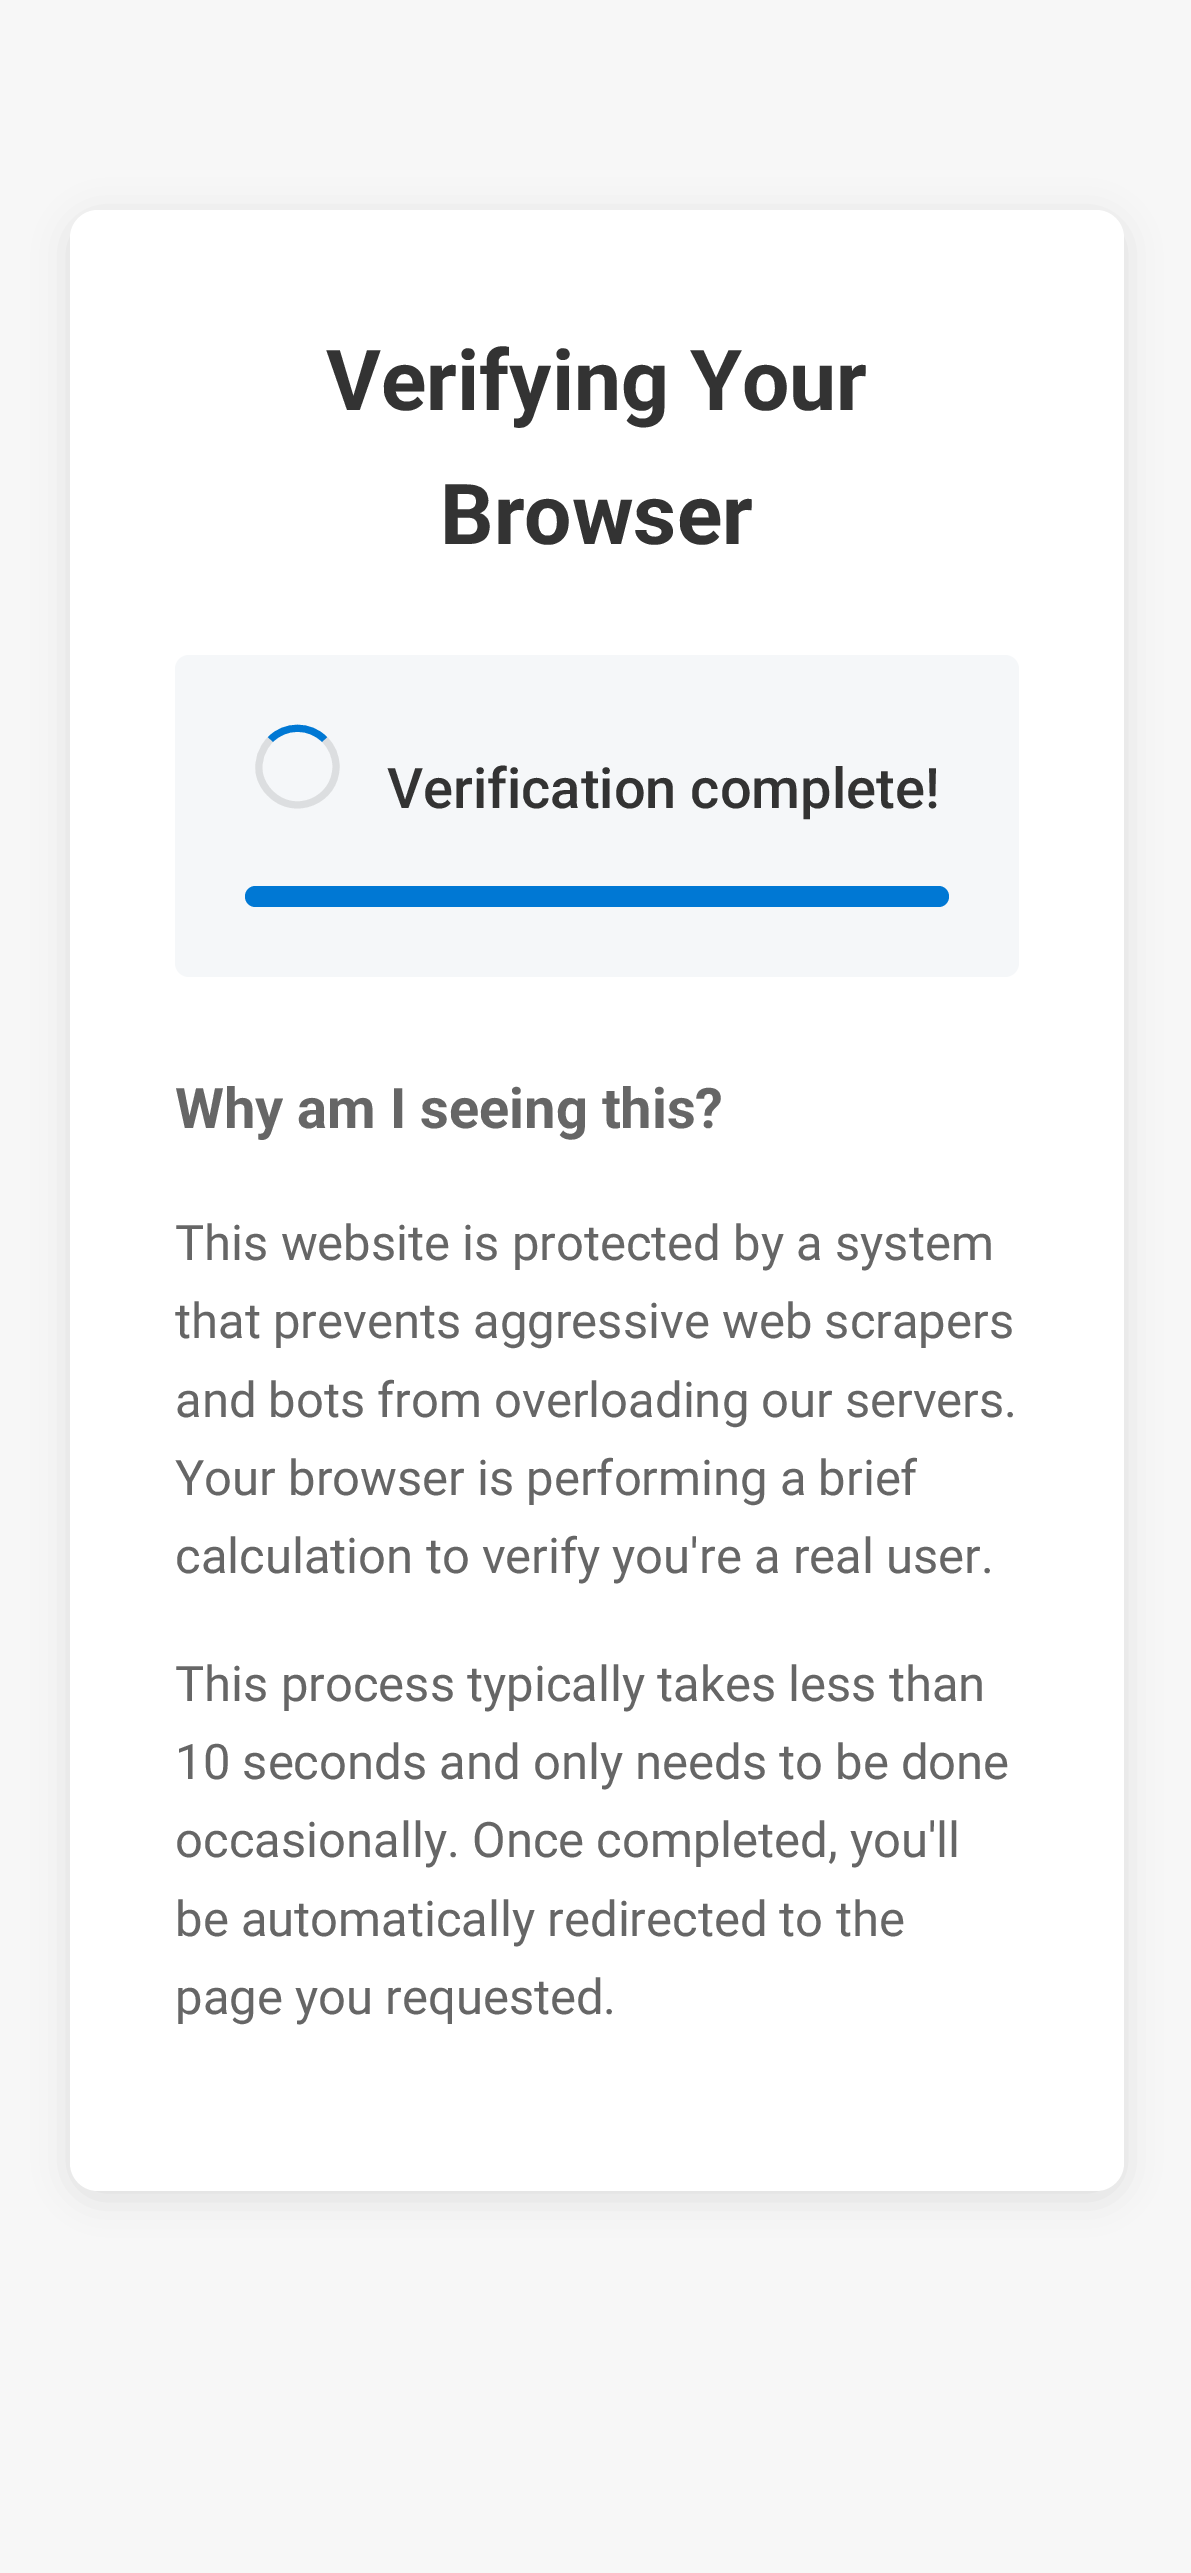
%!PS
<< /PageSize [1191 2573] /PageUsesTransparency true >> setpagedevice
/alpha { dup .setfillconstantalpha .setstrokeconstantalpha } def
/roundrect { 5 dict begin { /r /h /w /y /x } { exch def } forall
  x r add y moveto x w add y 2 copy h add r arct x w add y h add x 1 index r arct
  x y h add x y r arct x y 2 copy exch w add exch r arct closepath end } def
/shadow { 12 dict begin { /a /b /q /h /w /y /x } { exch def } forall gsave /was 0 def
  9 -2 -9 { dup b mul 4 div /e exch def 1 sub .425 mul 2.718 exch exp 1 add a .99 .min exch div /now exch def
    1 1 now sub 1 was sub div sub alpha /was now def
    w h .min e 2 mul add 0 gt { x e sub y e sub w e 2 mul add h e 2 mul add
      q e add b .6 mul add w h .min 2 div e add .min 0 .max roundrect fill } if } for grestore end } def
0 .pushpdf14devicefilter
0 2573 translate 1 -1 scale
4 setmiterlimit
0.969 setgray
0 0 1191 2573 rectfill
0 setgray
70 217 1054 1981 28 17.5 0.1 shadow
1 setgray
70 210 1054 1981 28 roundrect fill
/Roboto-Bold [84 0 0 -84 0 0] selectfont
0.2 setgray
326 410 moveto (Verifying Your) show
440 544 moveto (Browser) show
0.961 0.969 0.976 setrgbcolor
175 655 844 322 14 roundrect fill
0 0.471 0.831 setrgbcolor
7 setlinewidth
newpath 270.5 739.5 moveto 285 724.5 310 724.5 324.5 739.5 curveto stroke
0.1 alpha
0 setgray
newpath 324.5 739.5 moveto 332 746.5 336 756.5 336 766.5 curveto 336 800.5 294.5 818 270.5 793.5 curveto 265 788.5 261 781.5 259.5 774 curveto 257 761.5 261.5 748.5 270.5 739.5 curveto stroke
/Roboto-Medium [56 0 0 -56 0 0] selectfont
1 alpha
0.2 setgray
387 808 moveto (Verification complete!) show
0 0.471 0.831 setrgbcolor
245 886 704 21 10.5 roundrect fill
/Roboto-Bold [56 0 0 -56 0 0] selectfont
0.4 setgray
175 1128 moveto (Why am I seeing this?) show
/Roboto-Regular [49 0 0 -49 0 0] selectfont
175 1260 moveto (This website is protected by a system) show
175 1338 moveto (that prevents aggressive web scrapers) show
175 1417 moveto (and bots from overloading our servers.) show
175 1495 moveto (Your browser is performing a brief) show
175 1573 moveto (calculation to verify you're a real user.) show
175 1701 moveto (This process typically takes less than) show
175 1779 moveto (10 seconds and only needs to be done) show
175 1857 moveto (occasionally. Once completed, you'll) show
175 1936 moveto (be automatically redirected to the) show
175 2014 moveto (page you requested.) show
.poppdf14devicefilter showpage
